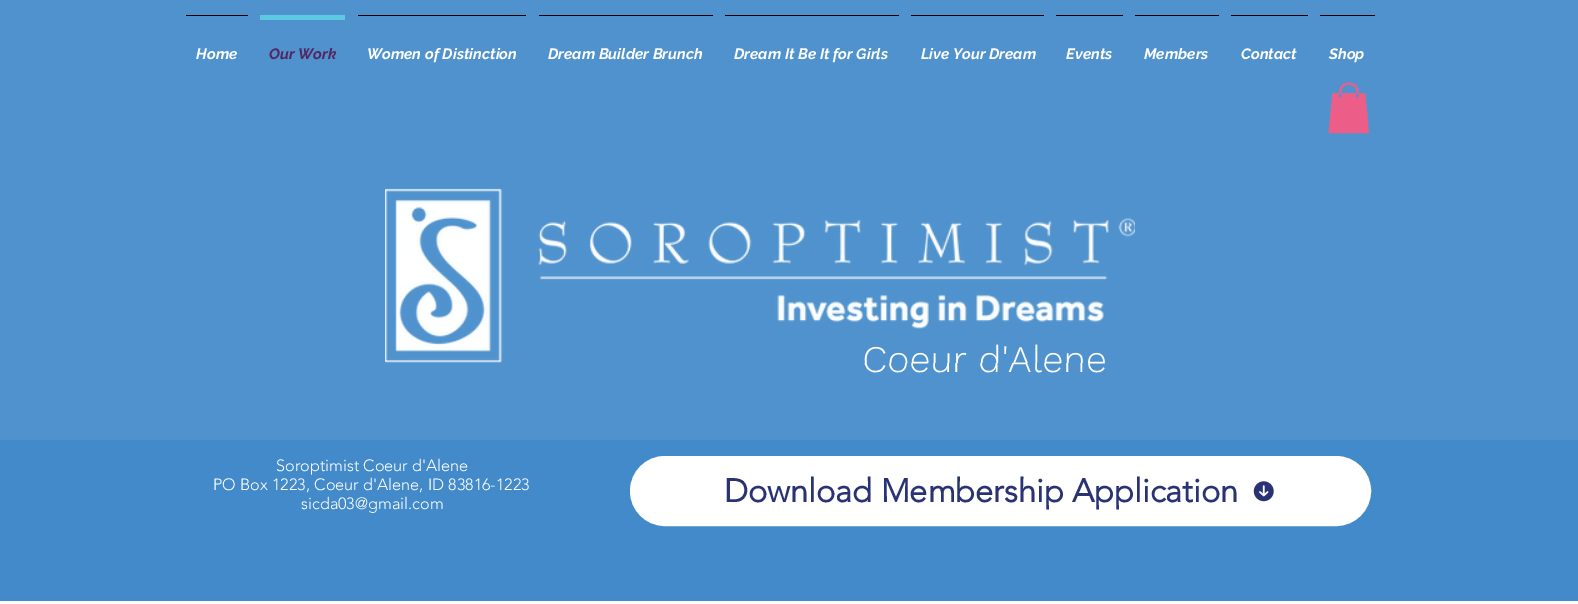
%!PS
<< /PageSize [1578 604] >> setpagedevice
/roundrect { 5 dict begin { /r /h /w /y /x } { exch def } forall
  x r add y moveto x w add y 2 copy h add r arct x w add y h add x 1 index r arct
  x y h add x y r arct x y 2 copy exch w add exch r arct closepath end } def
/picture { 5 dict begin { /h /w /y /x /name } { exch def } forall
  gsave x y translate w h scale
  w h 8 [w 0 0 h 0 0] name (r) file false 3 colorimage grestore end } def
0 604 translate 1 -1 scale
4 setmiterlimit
0.31 0.573 0.804 setrgbcolor
0 0 1578 604 rectfill
0 setgray
186 15 62 1 rectfill
/Raleway-BoldItalic [15 0 0 -15 0 0] selectfont
1 setgray
196 59 moveto (Home) show
0.357 0.788 0.871 setrgbcolor
260 15 85 5 rectfill
0.325 0.145 0.388 setrgbcolor
269 59 moveto (Our Work) show
0 setgray
358 15 168 1 rectfill
1 setgray
367 59 moveto (Women of Distinction) show
0 setgray
539 15 174 1 rectfill
1 setgray
548 59 moveto (Dream Builder Brunch) show
0 setgray
725 15 174 1 rectfill
1 setgray
734 59 moveto (Dream It Be It for Girls) show
0 setgray
911 15 133 1 rectfill
1 setgray
921 59 moveto (Live Your Dream) show
0 setgray
1056 15 67 1 rectfill
1 setgray
1066 59 moveto (Events) show
0 setgray
1135 15 84 1 rectfill
1 setgray
1144 59 moveto (Members) show
0 setgray
1231 15 77 1 rectfill
1 setgray
1241 59 moveto (Contact) show
0 setgray
1320 15 55 1 rectfill
1 setgray
1329 59 moveto (Shop) show
(img1.rgb) 1328 82 41 52 picture
/WorkSans-Light [37.5 0 0 -37.5 0 0] selectfont
862 372 moveto (Coeur d'Alene) show
(img2.rgb) 385 188 750 175 picture
0.259 0.541 0.788 setrgbcolor
0 440 1578 161 rectfill
/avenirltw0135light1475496-Light [16.25 0 0 -16.25 0 0] selectfont
1 setgray
276 471 moveto (Soroptimist Coeur d'Alene) show
213 490 moveto (PO Box 1223, Coeur d'Alene, ID 83816-1223) show
301 509 moveto (sicda03@gmail.com) show
631.5 457.5 738 67 33.5 roundrect gsave fill grestore
3 setlinewidth
stroke
/avenirltw0135light1475496-Bold [32.5 0 0 -32.5 0 0] selectfont
0.161 0.2 0.455 setrgbcolor
724 502 moveto (Download Membership Application) show
(img3.rgb) 1253 481 21 21 picture
1 setgray
0 601 1578 3 rectfill
showpage
